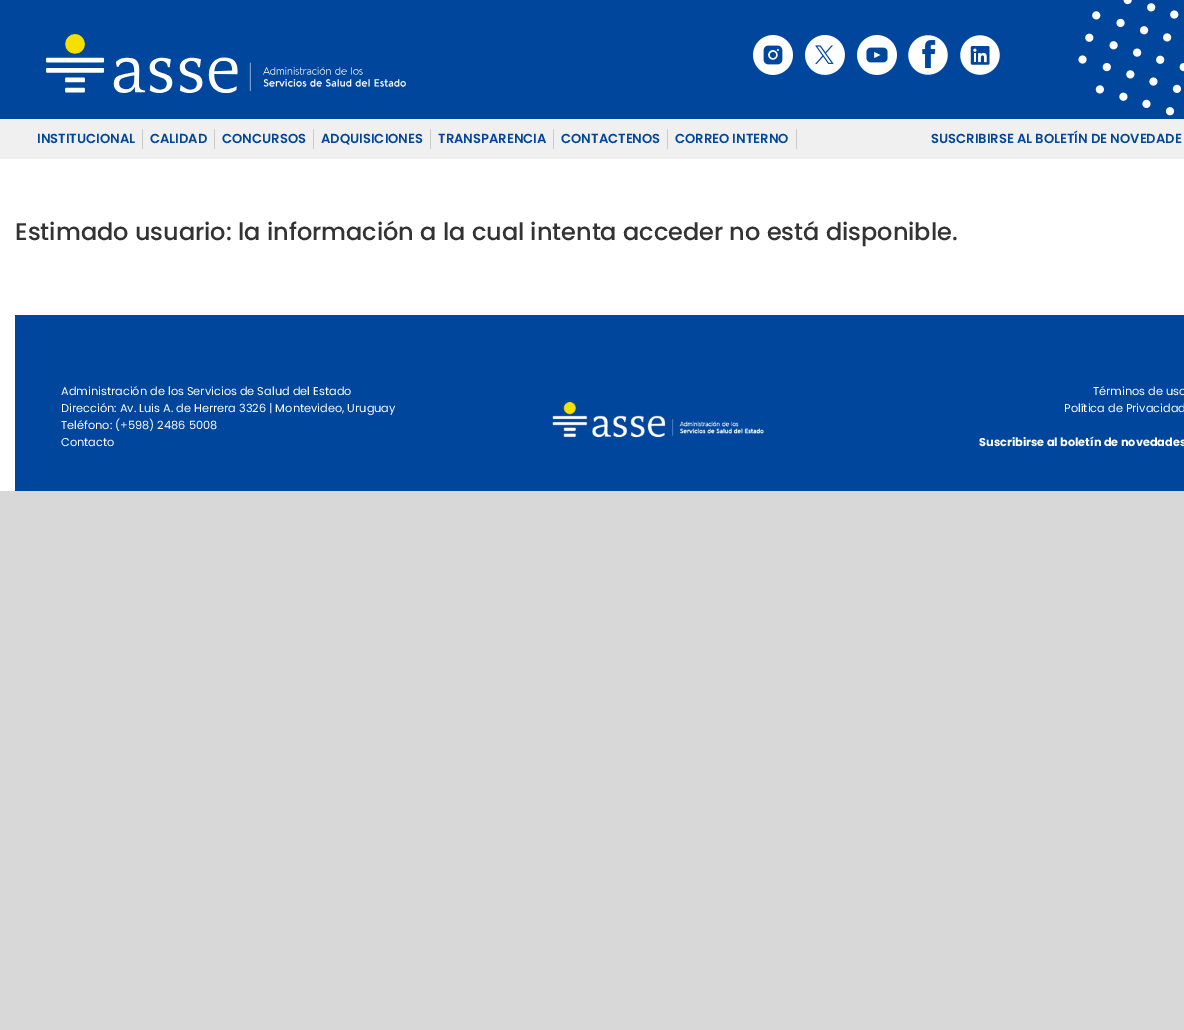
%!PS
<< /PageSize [1184 1030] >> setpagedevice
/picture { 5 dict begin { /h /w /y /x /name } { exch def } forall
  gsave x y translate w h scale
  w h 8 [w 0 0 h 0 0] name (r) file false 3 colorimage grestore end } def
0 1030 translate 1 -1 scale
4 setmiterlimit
0.847 setgray
0 0 1184 1030 rectfill
0 0.275 0.612 setrgbcolor
0 0 1184 119 rectfill
(img1.rgb) 1078 0 106 116 picture
(img2.rgb) 46 34 360 59 picture
(img3.rgb) 753 35 40 40 picture
(img4.rgb) 805 35 40 40 picture
(img5.rgb) 857 35 40 40 picture
(img6.rgb) 908 35 40 40 picture
(img7.rgb) 960 35 40 40 picture
0.941 setgray
0 119 1184 40 rectfill
0.8 setgray
142 129 1 20 rectfill
/Poppins-SemiBold [13.1 0 0 -13.1 0 0] selectfont
0 0.275 0.612 setrgbcolor
37 143 moveto (INSTITUCIONAL) show
0.8 setgray
214 129 1 20 rectfill
0 0.275 0.612 setrgbcolor
150 143 moveto (CALIDAD) show
0.8 setgray
313 129 1 20 rectfill
0 0.275 0.612 setrgbcolor
222 143 moveto (CONCURSOS) show
0.8 setgray
430 129 1 20 rectfill
0 0.275 0.612 setrgbcolor
321 143 moveto (ADQUISICIONES) show
0.8 setgray
553 129 1 20 rectfill
0 0.275 0.612 setrgbcolor
438 143 moveto (TRANSPARENCIA) show
0.8 setgray
667 129 1 20 rectfill
0 0.275 0.612 setrgbcolor
561 143 moveto (CONTACTENOS) show
0.8 setgray
796 129 1 20 rectfill
0 0.275 0.612 setrgbcolor
675 143 moveto (CORREO INTERNO) show
931 143 moveto (SUSCRIBIRSE AL BOLETÍN DE NOVEDADE) show
1 setgray
0 159 1184 332 rectfill
/Poppins-Medium [24 0 0 -24 0 0] selectfont
0.2 setgray
15 240 moveto (Estimado usuario: la información a la cual intenta acceder no está disponible.) show
0 0.275 0.612 setrgbcolor
15 315 1169 176 rectfill
/Poppins-Regular [11.35 0 0 -11.35 0 0] selectfont
1 setgray
61 395 moveto (Administración de los Servicios de Salud del Estado) show
61 412 moveto (Dirección: Av. Luis A. de Herrera 3326 | Montevideo, Uruguay) show
61 429 moveto (Teléfono: \(+598\) 2486 5008) show
61 446 moveto (Contacto) show
(img8.rgb) 552 402 212 36 picture
1093 395 moveto (Términos de uso) show
1064 412 moveto (Política de Privacidad) show
/Poppins-Bold [11.35 0 0 -11.35 0 0] selectfont
979 446 moveto (Suscribirse al boletín de novedades) show
showpage
